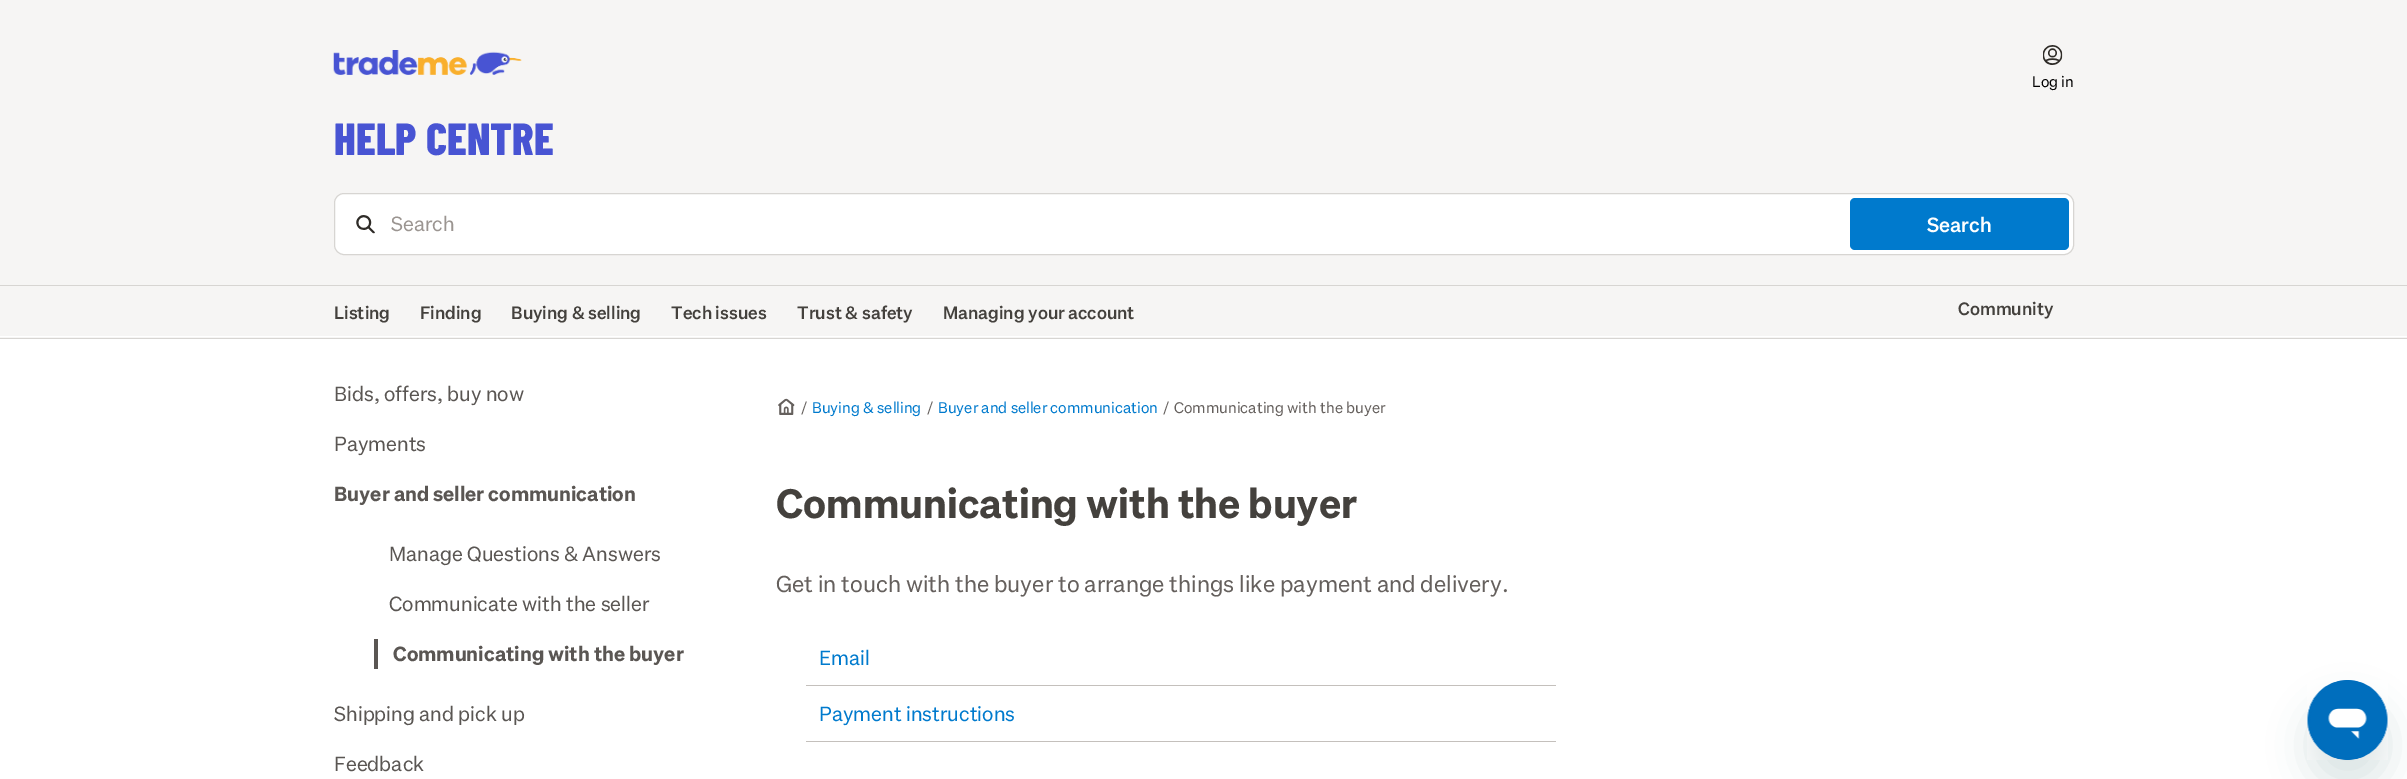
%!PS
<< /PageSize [2407 779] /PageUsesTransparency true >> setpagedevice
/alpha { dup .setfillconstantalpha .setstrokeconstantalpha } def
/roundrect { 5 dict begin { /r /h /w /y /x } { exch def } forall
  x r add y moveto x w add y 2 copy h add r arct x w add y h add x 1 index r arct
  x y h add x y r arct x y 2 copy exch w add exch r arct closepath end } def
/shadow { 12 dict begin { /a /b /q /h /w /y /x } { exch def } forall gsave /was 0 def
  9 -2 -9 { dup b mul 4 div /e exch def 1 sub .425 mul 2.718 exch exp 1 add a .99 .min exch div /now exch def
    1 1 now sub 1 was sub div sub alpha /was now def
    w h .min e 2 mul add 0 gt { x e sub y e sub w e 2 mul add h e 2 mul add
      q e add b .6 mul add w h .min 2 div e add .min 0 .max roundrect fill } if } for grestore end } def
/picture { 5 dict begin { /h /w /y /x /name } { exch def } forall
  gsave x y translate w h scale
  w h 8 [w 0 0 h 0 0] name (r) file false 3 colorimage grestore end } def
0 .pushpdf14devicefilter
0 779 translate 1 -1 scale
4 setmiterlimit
1 setgray
0 0 2407 779 rectfill
0.965 0.961 0.957 setrgbcolor
0 0 2407 338 rectfill
(img1.rgb) 333 50 189 25 picture
(img2.rgb) 2043 45 20 20 picture
/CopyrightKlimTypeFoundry-Regular [15 0 0 -15 0 0] selectfont
0 setgray
2032 87 moveto (Log in) show
/BarlowCondensed-ExtraBold [45 0 0 -45 0 0] selectfont
0.282 0.329 0.827 setrgbcolor
334 155 moveto (HELP CENTRE) show
1 setgray
334.5 193.5 1739 61 9.5 roundrect gsave fill grestore
0.843 0.835 0.824 setrgbcolor
stroke
(img3.rgb) 356 215 19 19 picture
/CopyrightKlimTypeFoundry-Regular [20 0 0 -20 0 0] selectfont
0.608 0.584 0.569 setrgbcolor
391 231 moveto (Search) show
0 0.478 0.804 setrgbcolor
1850 198 219 52 5 roundrect fill
/CopyrightKlimTypeFoundry-Medium [20 0 0 -20 0 0] selectfont
1 setgray
1927 232 moveto (Search) show
0.843 0.835 0.824 setrgbcolor
0 285 2407 1 rectfill
/CopyrightKlimTypeFoundry-Medium [17.5 0 0 -17.5 0 0] selectfont
0.267 0.255 0.239 setrgbcolor
334 319 moveto (Listing) show
420 319 moveto (Finding) show
511 319 moveto (Buying & selling) show
671 319 moveto (Tech issues) show
797 319 moveto (Trust & safety) show
943 319 moveto (Managing your account) show
1958 315 moveto (Community) show
1 setgray
0 336 2407 1 rectfill
0.843 0.835 0.824 setrgbcolor
0 338 2407 1 rectfill
/CopyrightKlimTypeFoundry-Regular [20 0 0 -20 0 0] selectfont
0.353 0.337 0.325 setrgbcolor
334 401 moveto (Bids, offers, buy now) show
334 451 moveto (Payments) show
/CopyrightKlimTypeFoundry-Bold [20 0 0 -20 0 0] selectfont
334 501 moveto (Buyer and seller communication) show
/CopyrightKlimTypeFoundry-Regular [20 0 0 -20 0 0] selectfont
389 561 moveto (Manage Questions & Answers) show
389 611 moveto (Communicate with the seller) show
374 639 4 30 rectfill
/CopyrightKlimTypeFoundry-Bold [20 0 0 -20 0 0] selectfont
393 661 moveto (Communicating with the buyer) show
/CopyrightKlimTypeFoundry-Regular [20 0 0 -20 0 0] selectfont
334 721 moveto (Shipping and pick up) show
334 771 moveto (Feedback) show
(img4.rgb) 778 398 17 17 picture
/CopyrightKlimTypeFoundry-Regular [15 0 0 -15 0 0] selectfont
0.396 0.376 0.365 setrgbcolor
801 413 moveto (/) show
0 0.478 0.804 setrgbcolor
812 413 moveto (Buying & selling) show
0.396 0.376 0.365 setrgbcolor
927 413 moveto (/) show
0 0.478 0.804 setrgbcolor
938 413 moveto (Buyer and seller communication) show
0.396 0.376 0.365 setrgbcolor
1163 413 moveto (/) show
1174 413 moveto (Communicating with the buyer) show
/CopyrightKlimTypeFoundry-Bold [40 0 0 -40 0 0] selectfont
0.267 0.255 0.239 setrgbcolor
776 518 moveto (Communicating with the buyer) show
/CopyrightKlimTypeFoundry-Regular [22.5 0 0 -22.5 0 0] selectfont
0.396 0.376 0.365 setrgbcolor
776 592 moveto (Get in touch with the buyer to arrange things like payment and delivery.) show
0.769 0.753 0.737 setrgbcolor
806 685 750 1 rectfill
/CopyrightKlimTypeFoundry-Regular [20 0 0 -20 0 0] selectfont
0 0.478 0.804 setrgbcolor
819 665 moveto (Email) show
0.769 0.753 0.737 setrgbcolor
806 741 750 1 rectfill
0 0.478 0.804 setrgbcolor
819 721 moveto (Payment instructions) show
0.09 0.286 0.302 setrgbcolor
2308 705 80 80 40 19 0.15 shadow
(img5.rgb) 2307 680 81 80 picture
.poppdf14devicefilter showpage
